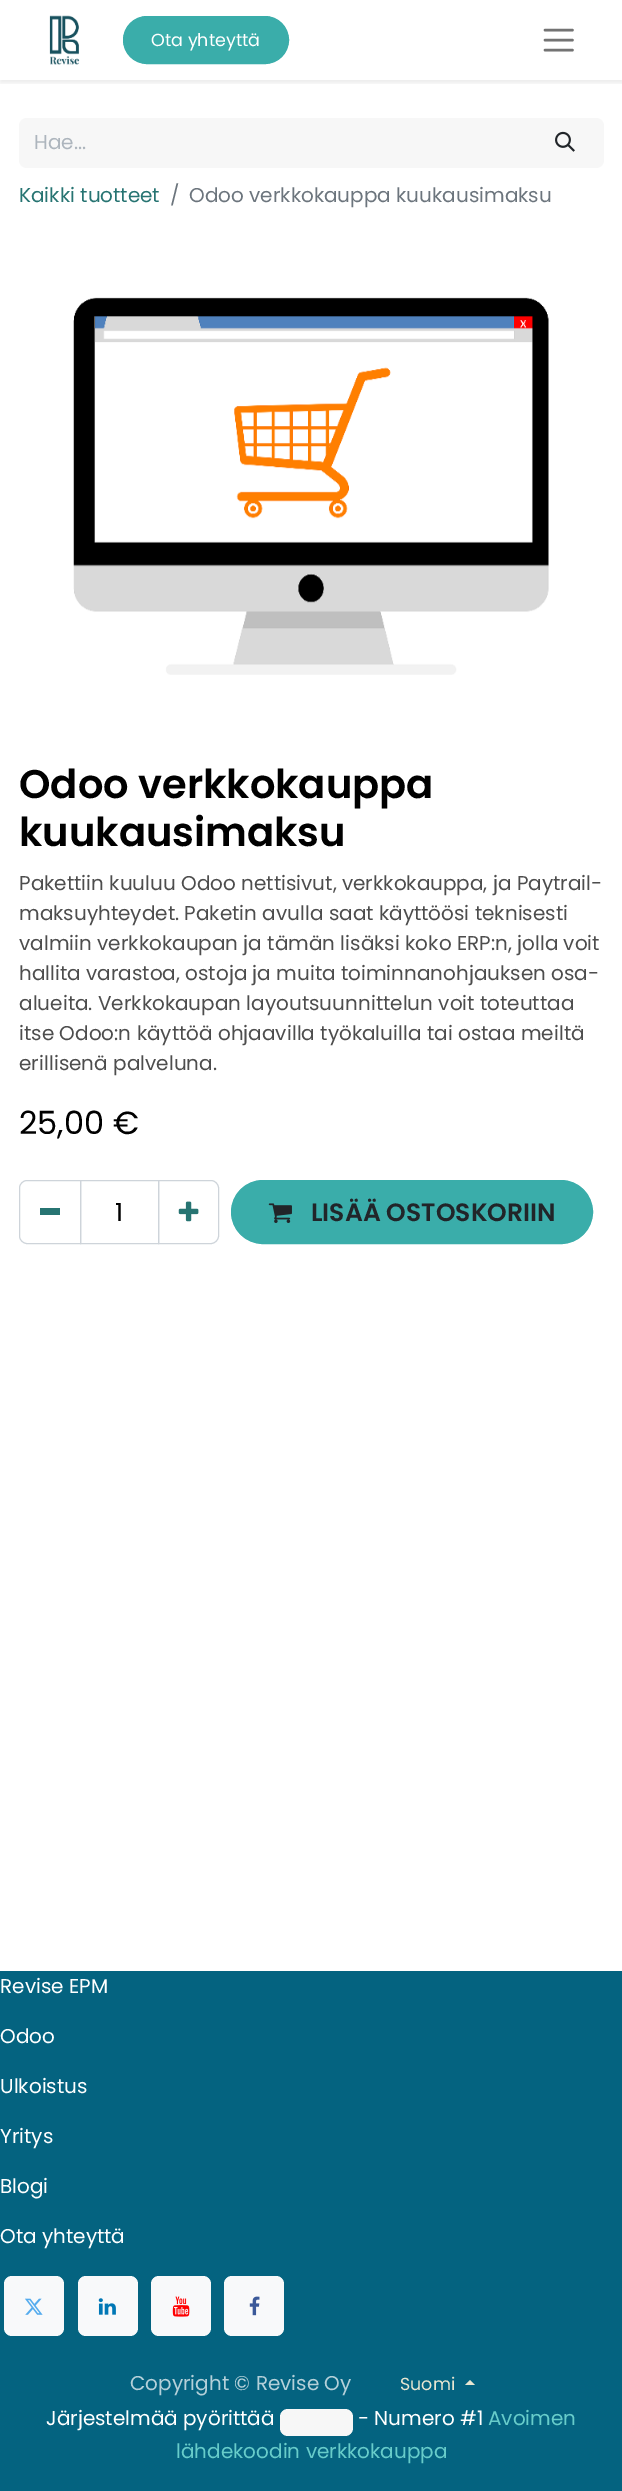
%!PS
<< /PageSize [622 2491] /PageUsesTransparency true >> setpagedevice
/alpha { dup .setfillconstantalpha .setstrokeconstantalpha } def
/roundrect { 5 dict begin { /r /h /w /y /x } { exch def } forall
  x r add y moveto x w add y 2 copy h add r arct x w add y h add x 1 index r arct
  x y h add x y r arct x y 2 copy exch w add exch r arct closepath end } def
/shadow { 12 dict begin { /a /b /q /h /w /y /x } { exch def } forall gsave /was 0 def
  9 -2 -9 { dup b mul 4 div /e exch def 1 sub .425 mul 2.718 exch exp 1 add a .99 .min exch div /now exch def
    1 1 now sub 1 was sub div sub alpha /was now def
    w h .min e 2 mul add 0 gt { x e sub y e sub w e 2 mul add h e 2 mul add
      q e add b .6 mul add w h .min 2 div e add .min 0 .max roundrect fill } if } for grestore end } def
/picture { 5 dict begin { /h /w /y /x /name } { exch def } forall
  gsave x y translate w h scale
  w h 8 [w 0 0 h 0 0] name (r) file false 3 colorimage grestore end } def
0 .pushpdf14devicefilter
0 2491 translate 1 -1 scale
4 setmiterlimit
1 setgray
0 0 622 2491 rectfill
gsave
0 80 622 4 rectclip
0 setgray
0 3 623 80 0 2.5 0.07 shadow
grestore
(img1.rgb) 49 15 31 50 picture
0.227 0.678 0.667 setrgbcolor
123.5 16.5 165 47 23.5 roundrect gsave fill grestore
stroke
/Poppins-Regular [17.5 0 0 -17.5 0 0] selectfont
1 setgray
151 46 moveto (Ota yhteyttä) show
0.451 setgray
2.5 setlinewidth
1 setlinecap
newpath 545 30 moveto 572.5 30 lineto 545 40 moveto 572.5 40 lineto 545 50 moveto 572.5 50 lineto stroke
0.969 setgray
newpath 27 118 moveto 529 118 lineto 529 168 lineto 27 168 lineto 22.5 168 19 164.5 19 160 curveto 19 126 lineto 19 121.5 22.5 118 27 118 curveto closepath fill
/Poppins-Regular [20 0 0 -20 0 0] selectfont
0.678 0.71 0.741 setrgbcolor
34 149 moveto (Hae...) show
0.969 setgray
newpath 528 118 moveto 596 118 lineto 600.5 118 604 121.5 604 126 curveto 604 160 lineto 604 164.5 600.5 168 596 168 curveto 528 168 lineto closepath fill
(img2.rgb) 555 131 20 21 picture
0.153 0.455 0.447 setrgbcolor
19 202 moveto (Kaikki tuotteet) show
0.424 0.459 0.49 setrgbcolor
170 202 moveto (/) show
189 202 moveto (Odoo verkkokauppa kuukausimaksu) show
(img3.rgb) 73 297 476 378 picture
/Poppins-SemiBold [40 0 0 -40 0 0] selectfont
0 setgray
19 798 moveto (Odoo verkkokauppa) show
19 846 moveto (kuukausimaksu) show
/Poppins-Regular [20 0 0 -20 0 0] selectfont
0.302 setgray
19 890 moveto (Pakettiin kuuluu Odoo nettisivut, verkkokauppa, ja Paytrail-) show
19 920 moveto (maksuyhteydet. Paketin avulla saat käyttöösi teknisesti) show
19 950 moveto (valmiin verkkokaupan ja tämän lisäksi koko ERP:n, jolla voit) show
19 980 moveto (hallita varastoa, ostoja ja muita toiminnanohjauksen osa-) show
19 1010 moveto (alueita. Verkkokaupan layoutsuunnittelun voit toteuttaa) show
19 1040 moveto (itse Odoo:n käyttöä ohjaavilla työkaluilla tai ostaa meiltä) show
19 1070 moveto (erillisenä palveluna.) show
/Poppins-Regular [32 0 0 -32 0 0] selectfont
0 setgray
19 1134 moveto (25,00 €) show
0.808 0.831 0.855 setrgbcolor
1 setlinewidth
0 setlinecap
80.5 1180.5 78 63 rectstroke
newpath 27 1180.5 moveto 80.5 1180.5 lineto 80.5 1243.5 lineto 27 1243.5 lineto 23 1243.5 19.5 1240 19.5 1236 curveto 19.5 1188 lineto 19.5 1184 23 1180.5 27 1180.5 curveto closepath stroke
0.153 0.455 0.447 setrgbcolor
40 1208 20 7 rectfill
/Poppins-Regular [25 0 0 -25 0 0] selectfont
0 setgray
115 1221 moveto (1) show
0.808 0.831 0.855 setrgbcolor
newpath 158.5 1180.5 moveto 211 1180.5 lineto 215 1180.5 218.5 1184 218.5 1188 curveto 218.5 1236 lineto 218.5 1240 215 1243.5 211 1243.5 curveto 158.5 1243.5 lineto closepath stroke
(img4.rgb) 178 1201 21 21 picture
0.227 0.678 0.667 setrgbcolor
231.5 1180.5 361 63 31.5 roundrect gsave fill grestore
stroke
(img5.rgb) 268 1203 24 20 picture
/Poppins-SemiBold [25 0 0 -25 0 0] selectfont
0.129 0.145 0.161 setrgbcolor
311 1221 moveto (LISÄÄ OSTOSKORIIN) show
0.016 0.388 0.502 setrgbcolor
0 1971 622 520 rectfill
/Poppins-Regular [20 0 0 -20 0 0] selectfont
1 setgray
0 1993 moveto (Revise EPM) show
0 2043 moveto (Odoo) show
0 2093 moveto (Ulkoistus) show
0 2143 moveto (Yritys) show
0 2193 moveto (Blogi) show
0 2243 moveto (Ota yhteyttä) show
0.973 0.976 0.98 setrgbcolor
4 2276 60 60 8 roundrect fill
(img6.rgb) 25 2298 18 17 picture
78 2276 60 60 8 roundrect fill
(img7.rgb) 98 2298 18 17 picture
151 2276 60 60 8 roundrect fill
(img8.rgb) 172 2296 18 21 picture
224 2276 60 60 8 roundrect fill
(img9.rgb) 249 2296 11 20 picture
0.706 0.816 0.851 setrgbcolor
130 2390 moveto (Copyright © Revise Oy) show
/Poppins-Regular [17.5 0 0 -17.5 0 0] selectfont
0.91 0.902 0.82 setrgbcolor
400 2390 moveto (Suomi) show
newpath 475 2385 moveto 465 2385 lineto 470 2380 lineto closepath fill
/Poppins-Regular [20 0 0 -20 0 0] selectfont
1 setgray
46 2425 moveto (Järjestelmää pyörittää) show
0.969 setgray
280 2409 73 27 8 roundrect fill
1 setgray
358 2425 moveto (- Numero #1) show
0.404 0.8 0.792 setrgbcolor
488 2425 moveto (Avoimen) show
176 2458 moveto (lähdekoodin verkkokauppa) show
.poppdf14devicefilter showpage
